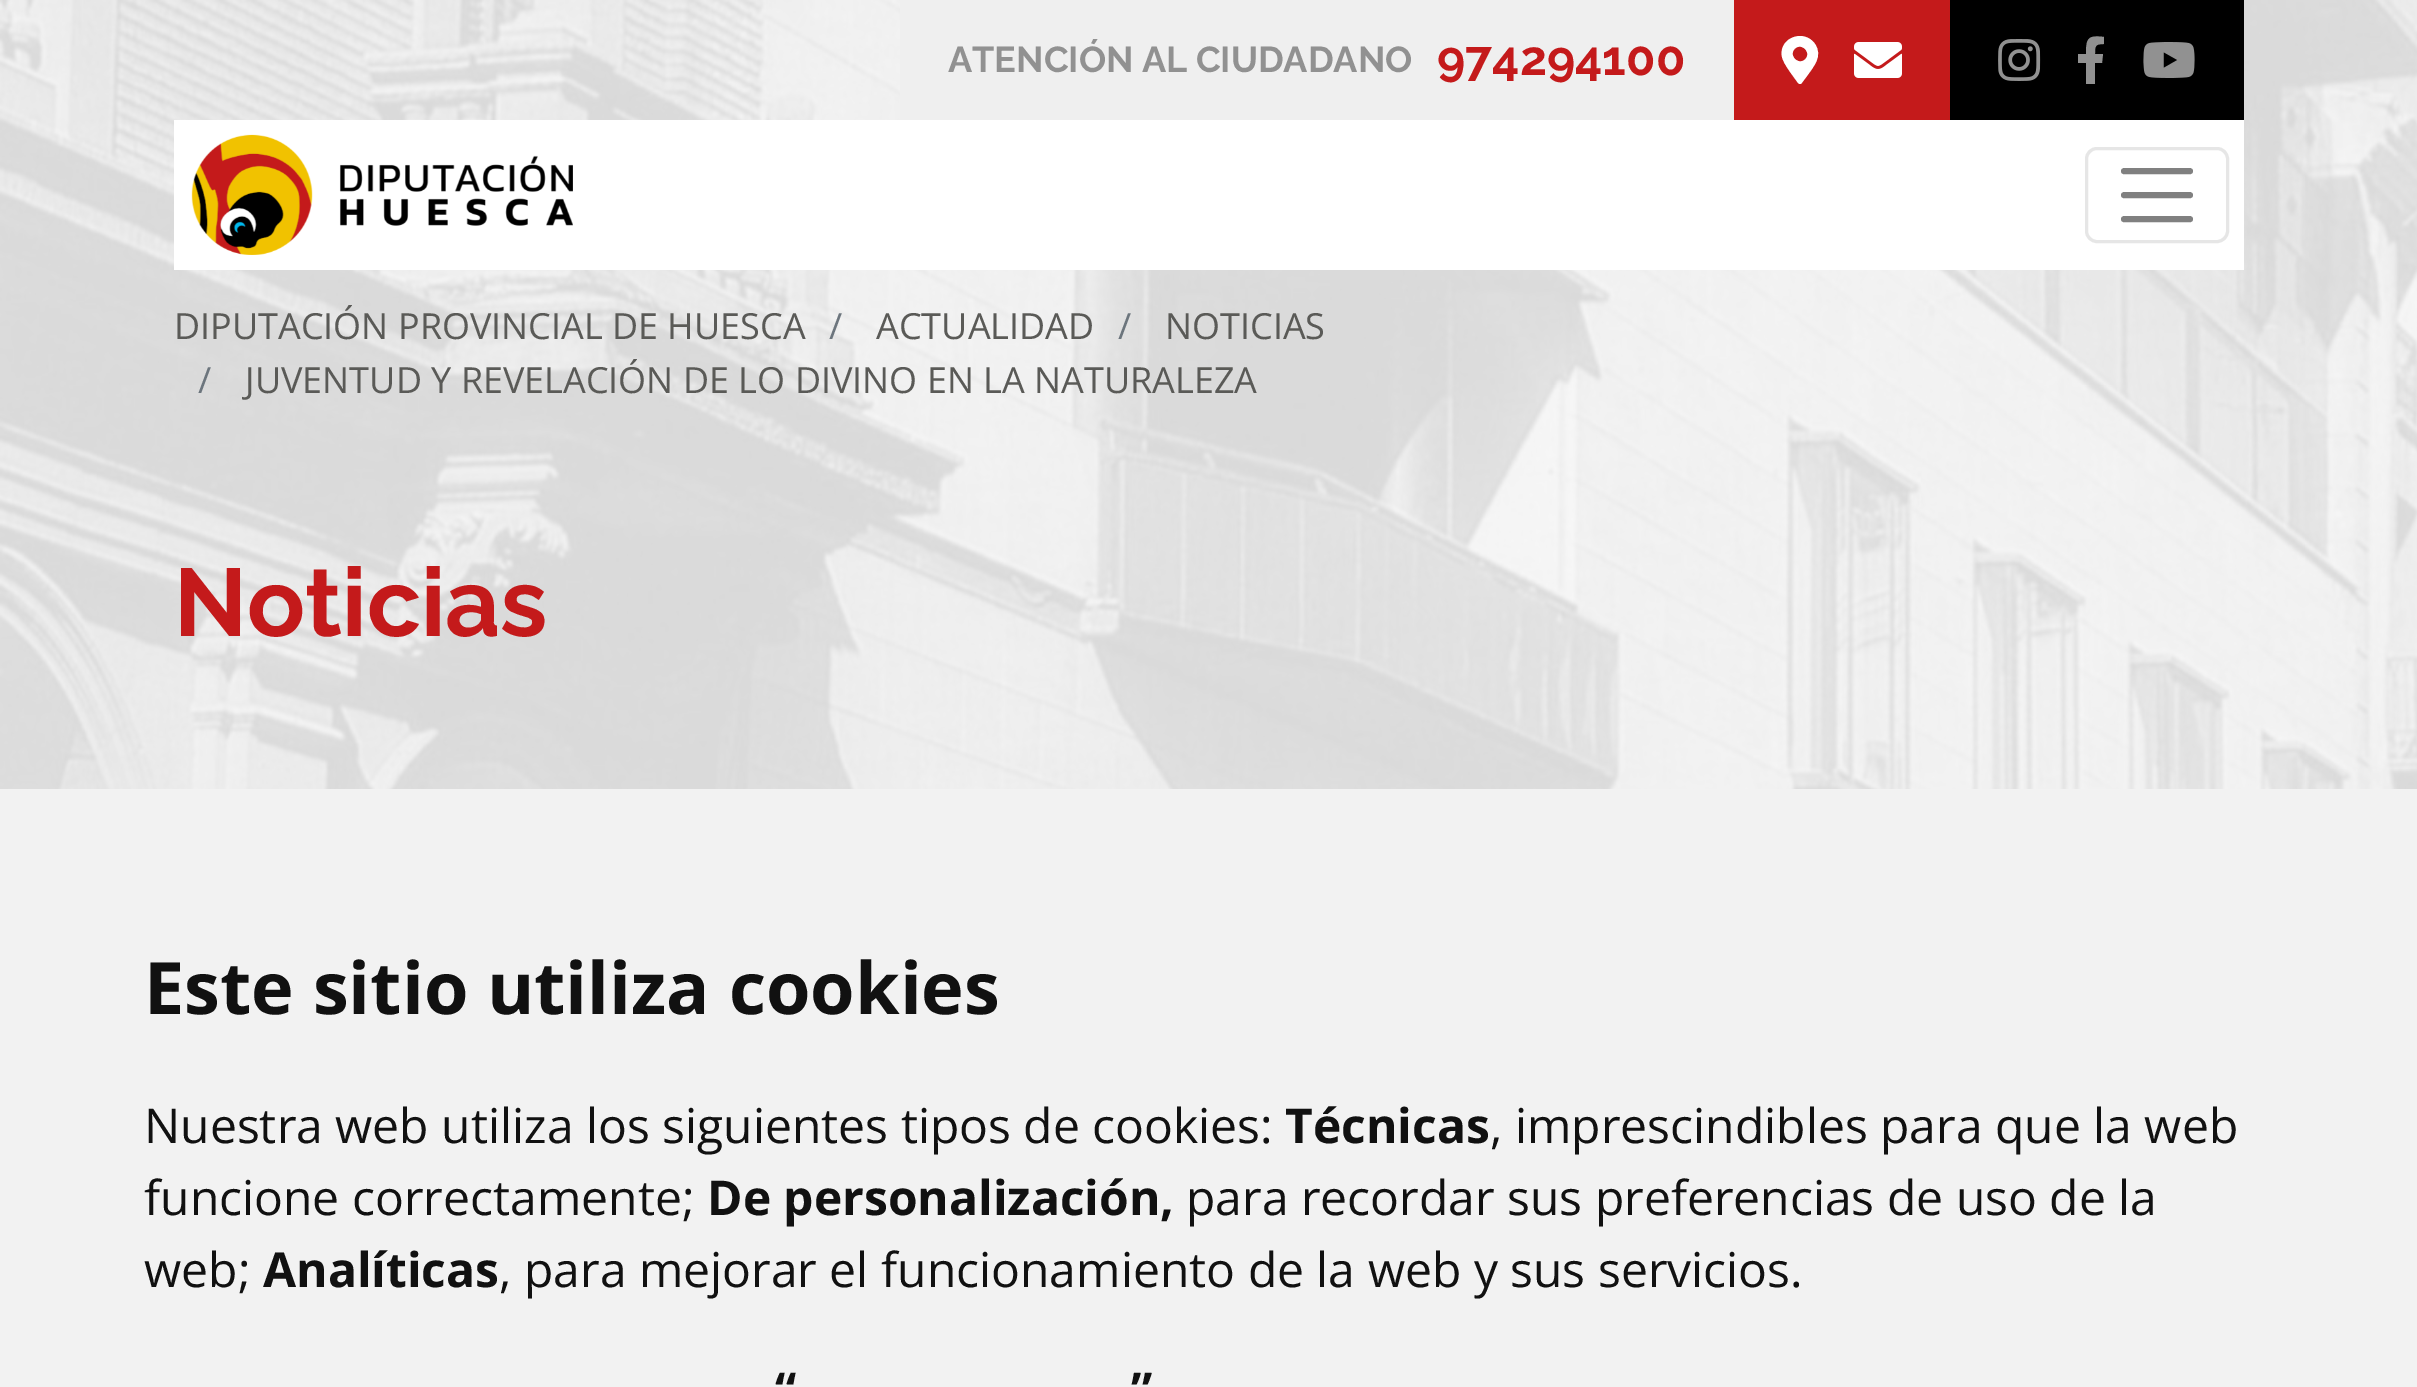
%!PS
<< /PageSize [2417 1387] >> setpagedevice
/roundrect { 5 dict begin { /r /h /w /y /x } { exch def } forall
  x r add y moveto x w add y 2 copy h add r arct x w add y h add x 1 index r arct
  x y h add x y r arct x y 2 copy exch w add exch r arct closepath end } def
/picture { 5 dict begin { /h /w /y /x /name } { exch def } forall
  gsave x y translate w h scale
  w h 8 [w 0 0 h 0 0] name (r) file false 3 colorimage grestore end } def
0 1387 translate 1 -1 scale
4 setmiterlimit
1 setgray
0 0 2417 1387 rectfill
(img5.rgb) 0 0 2417 789 picture
0.937 setgray
900 0 834 120 rectfill
/Raleway-Bold [36 0 0 -36 0 0] selectfont
0.569 setgray
948 72 moveto (ATENCIÓN AL CIUDADANO) show
/Raleway-Bold [48 0 0 -48 0 0] selectfont
0.769 0.102 0.106 setrgbcolor
1437 75 moveto (974294100) show
1734 0 216 120 rectfill
1 setgray
newpath 1798 83 moveto 1794 77 1784 65 1782 57 curveto 1778 38 1804 28 1815 44 curveto 1823 56 1814 66 1807 76 curveto 1801 84 lineto 1800 84 1799 84 1798 83 curveto closepath 1795 59 moveto 1802 66 1812 56 1805 49 curveto 1798 42 1788 52 1795 59 curveto closepath fill
(img1.rgb) 1854 42 48 36 picture
0 setgray
1950 0 294 120 rectfill
(img2.rgb) 1998 39 43 42 picture
0.569 setgray
newpath 2102 63 moveto 2095 63 lineto 2095 84 lineto 2086 84 lineto 2086 63 lineto 2078 63 lineto 2078 54 lineto 2086 54 lineto 2086 38 2088 35 2104 37 curveto 2104 44 lineto 2095 44 2095 46 2095 54 curveto 2103 54 lineto closepath fill
(img3.rgb) 2143 42 52 36 picture
1 setgray
174 120 2070 150 rectfill
(img4.rgb) 191 134 382 121 picture
0.902 setgray
3 setlinewidth
2086.5 148.5 141 93 10.5 roundrect stroke
0.502 setgray
6 setlinewidth
1 setlinecap
newpath 2124 171 moveto 2190 171 lineto 2124 195 moveto 2190 195 lineto 2124 219 moveto 2190 219 lineto stroke
/OpenSans-Regular [36 0 0 -36 0 0] selectfont
0.353 0.353 0.341 setrgbcolor
174 339 moveto (DIPUTACIÓN PROVINCIAL DE HUESCA) show
0.424 0.459 0.49 setrgbcolor
829 339 moveto (/) show
0.353 0.353 0.341 setrgbcolor
876 339 moveto (ACTUALIDAD) show
0.424 0.459 0.49 setrgbcolor
1118 339 moveto (/) show
0.353 0.353 0.341 setrgbcolor
1165 339 moveto (NOTICIAS) show
0.424 0.459 0.49 setrgbcolor
198 393 moveto (/) show
0.353 0.353 0.341 setrgbcolor
245 393 moveto (JUVENTUD Y REVELACIÓN DE LO DIVINO EN LA NATURALEZA) show
/Raleway-Bold [96 0 0 -96 0 0] selectfont
0.769 0.102 0.106 setrgbcolor
174 636 moveto (Noticias) show
0.949 setgray
0 789 2417 598 rectfill
/OpenSans-Bold [72 0 0 -72 0 0] selectfont
0.067 setgray
144 1014 moveto (Este sitio utiliza cookies) show
/OpenSans-Regular [48 0 0 -48 0 0] selectfont
144 1143 moveto (Nuestra web utiliza los siguientes tipos de cookies:) show
/OpenSans-Bold [48 0 0 -48 0 0] selectfont
1285 1143 moveto (Técnicas) show
/OpenSans-Regular [48 0 0 -48 0 0] selectfont
1490 1143 moveto (, imprescindibles para que la web) show
144 1215 moveto (funcione correctamente;) show
/OpenSans-Bold [48 0 0 -48 0 0] selectfont
707 1215 moveto (De personalización,) show
/OpenSans-Regular [48 0 0 -48 0 0] selectfont
1186 1215 moveto (para recordar sus preferencias de uso de la) show
144 1287 moveto (web;) show
/OpenSans-Bold [48 0 0 -48 0 0] selectfont
263 1287 moveto (Analíticas) show
/OpenSans-Regular [48 0 0 -48 0 0] selectfont
499 1287 moveto (, para mejorar el funcionamiento de la web y sus servicios.) show
/OpenSans-Bold [48 0 0 -48 0 0] selectfont
775 1407 moveto (“) show
1131 1407 moveto (”) show
showpage
